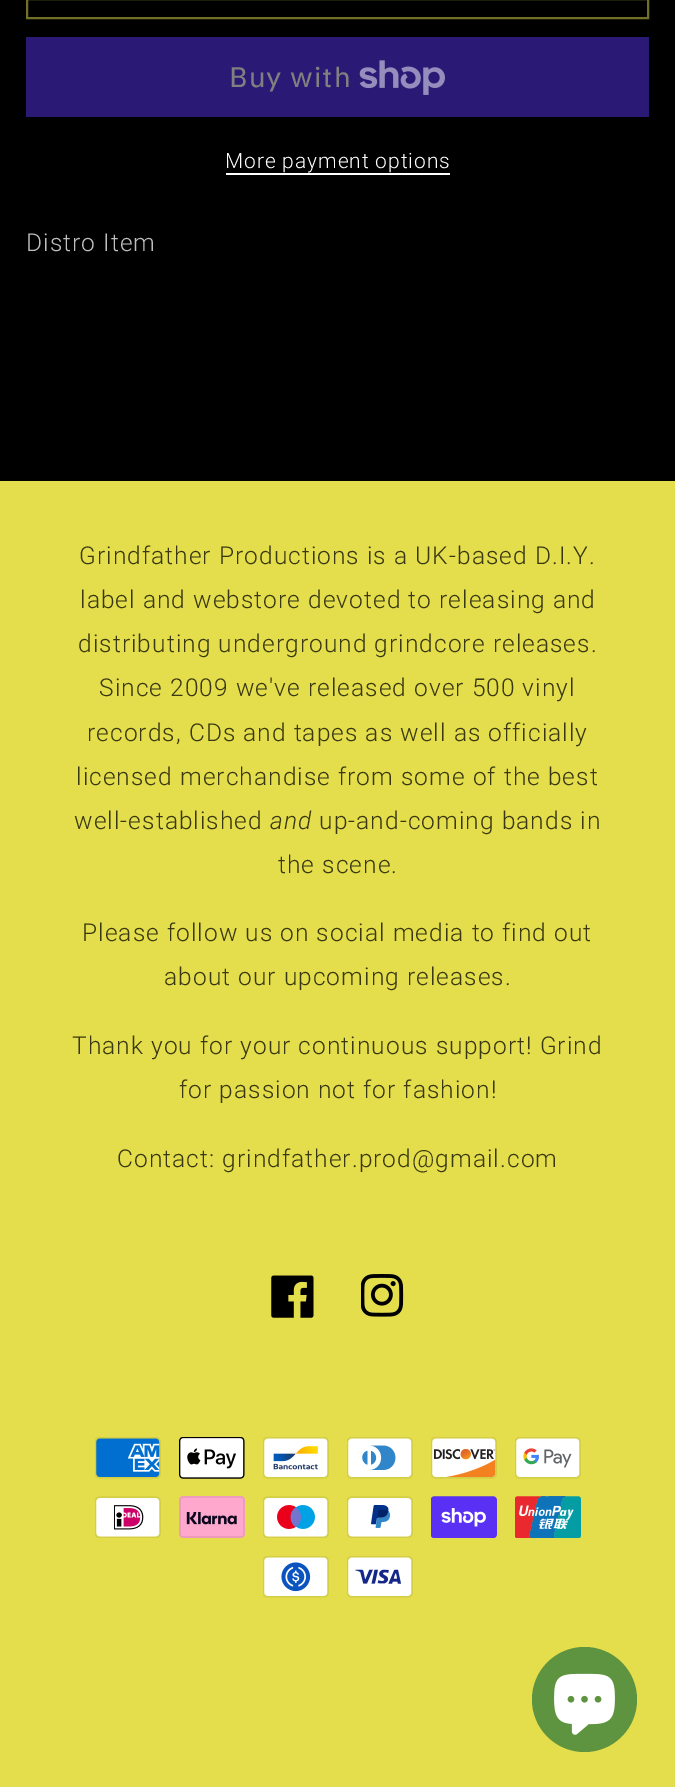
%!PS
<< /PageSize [675 1787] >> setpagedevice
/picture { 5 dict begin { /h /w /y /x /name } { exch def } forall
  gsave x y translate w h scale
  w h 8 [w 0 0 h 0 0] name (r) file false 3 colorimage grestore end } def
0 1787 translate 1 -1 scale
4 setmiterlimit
0 setgray
0 0 675 1787 rectfill
0.447 0.435 0.149 setrgbcolor
2 setlinewidth
27 -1 621 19 rectstroke
0.165 0.102 0.463 setrgbcolor
26 37 623 80 rectfill
/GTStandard-Regular [28 0 0 -28 0 0] selectfont
0.502 setgray
229 87 moveto 1.05 0 (Buy with) ashow
(img1.rgb) 359 60 86 35 picture
/Roboto-Light [21 0 0 -21 0 0] selectfont
1 setgray
225 168 moveto 0.9 0 (More payment options) ashow
226 173 224 2 rectfill
/Roboto-Light [24.5 0 0 -24.5 0 0] selectfont
0.749 setgray
26 251 moveto 1.05 0 (Distro Item) ashow
0.894 0.871 0.298 setrgbcolor
0 481 675 1306 rectfill
0.224 0.22 0.075 setrgbcolor
79 564 moveto 1.05 0 (Grindfather Productions is a UK-based D.I.Y.) ashow
80 608 moveto 1.05 0 (label and webstore devoted to releasing and) ashow
78 652 moveto 1.05 0 (distributing underground grindcore releases.) ashow
99 696 moveto 1.05 0 (Since 2009 we've released over 500 vinyl) ashow
87 741 moveto 1.05 0 (records, CDs and tapes as well as officially) ashow
76 785 moveto 1.05 0 (licensed merchandise from some of the best) ashow
74 829 moveto 1.05 0 (well-established) ashow
/Roboto-LightItalic [24.5 0 0 -24.5 0 0] selectfont
270 829 moveto 1.05 0 (and) ashow
/Roboto-Light [24.5 0 0 -24.5 0 0] selectfont
319 829 moveto 1.05 0 (up-and-coming bands in) ashow
278 873 moveto 1.05 0 (the scene.) ashow
82 941 moveto 1.05 0 (Please follow us on social media to find out) ashow
164 985 moveto 1.05 0 (about our upcoming releases.) ashow
72 1054 moveto 1.05 0 (Thank you for your continuous support! Grind) ashow
179 1098 moveto 1.05 0 (for passion not for fashion!) ashow
117 1167 moveto 1.05 0 (Contact: grindfather.prod@gmail.com) ashow
(img2.rgb) 271 1275 43 43 picture
(img3.rgb) 361 1274 43 43 picture
(img4.rgb) 95 1437 66 42 picture
(img5.rgb) 179 1437 66 42 picture
(img6.rgb) 263 1437 66 42 picture
(img7.rgb) 347 1437 66 42 picture
(img8.rgb) 431 1437 66 42 picture
(img9.rgb) 515 1437 66 42 picture
(img10.rgb) 95 1496 66 42 picture
(img11.rgb) 179 1496 66 42 picture
(img12.rgb) 263 1496 66 42 picture
(img13.rgb) 347 1496 66 42 picture
(img14.rgb) 431 1496 66 42 picture
(img15.rgb) 515 1496 66 42 picture
(img16.rgb) 263 1556 66 42 picture
(img17.rgb) 347 1556 66 42 picture
0.369 0.58 0.247 setrgbcolor
newpath 584.5 1699.5 52.5 0 360 arc closepath fill
(img18.rgb) 554 1673 61 62 picture
showpage
